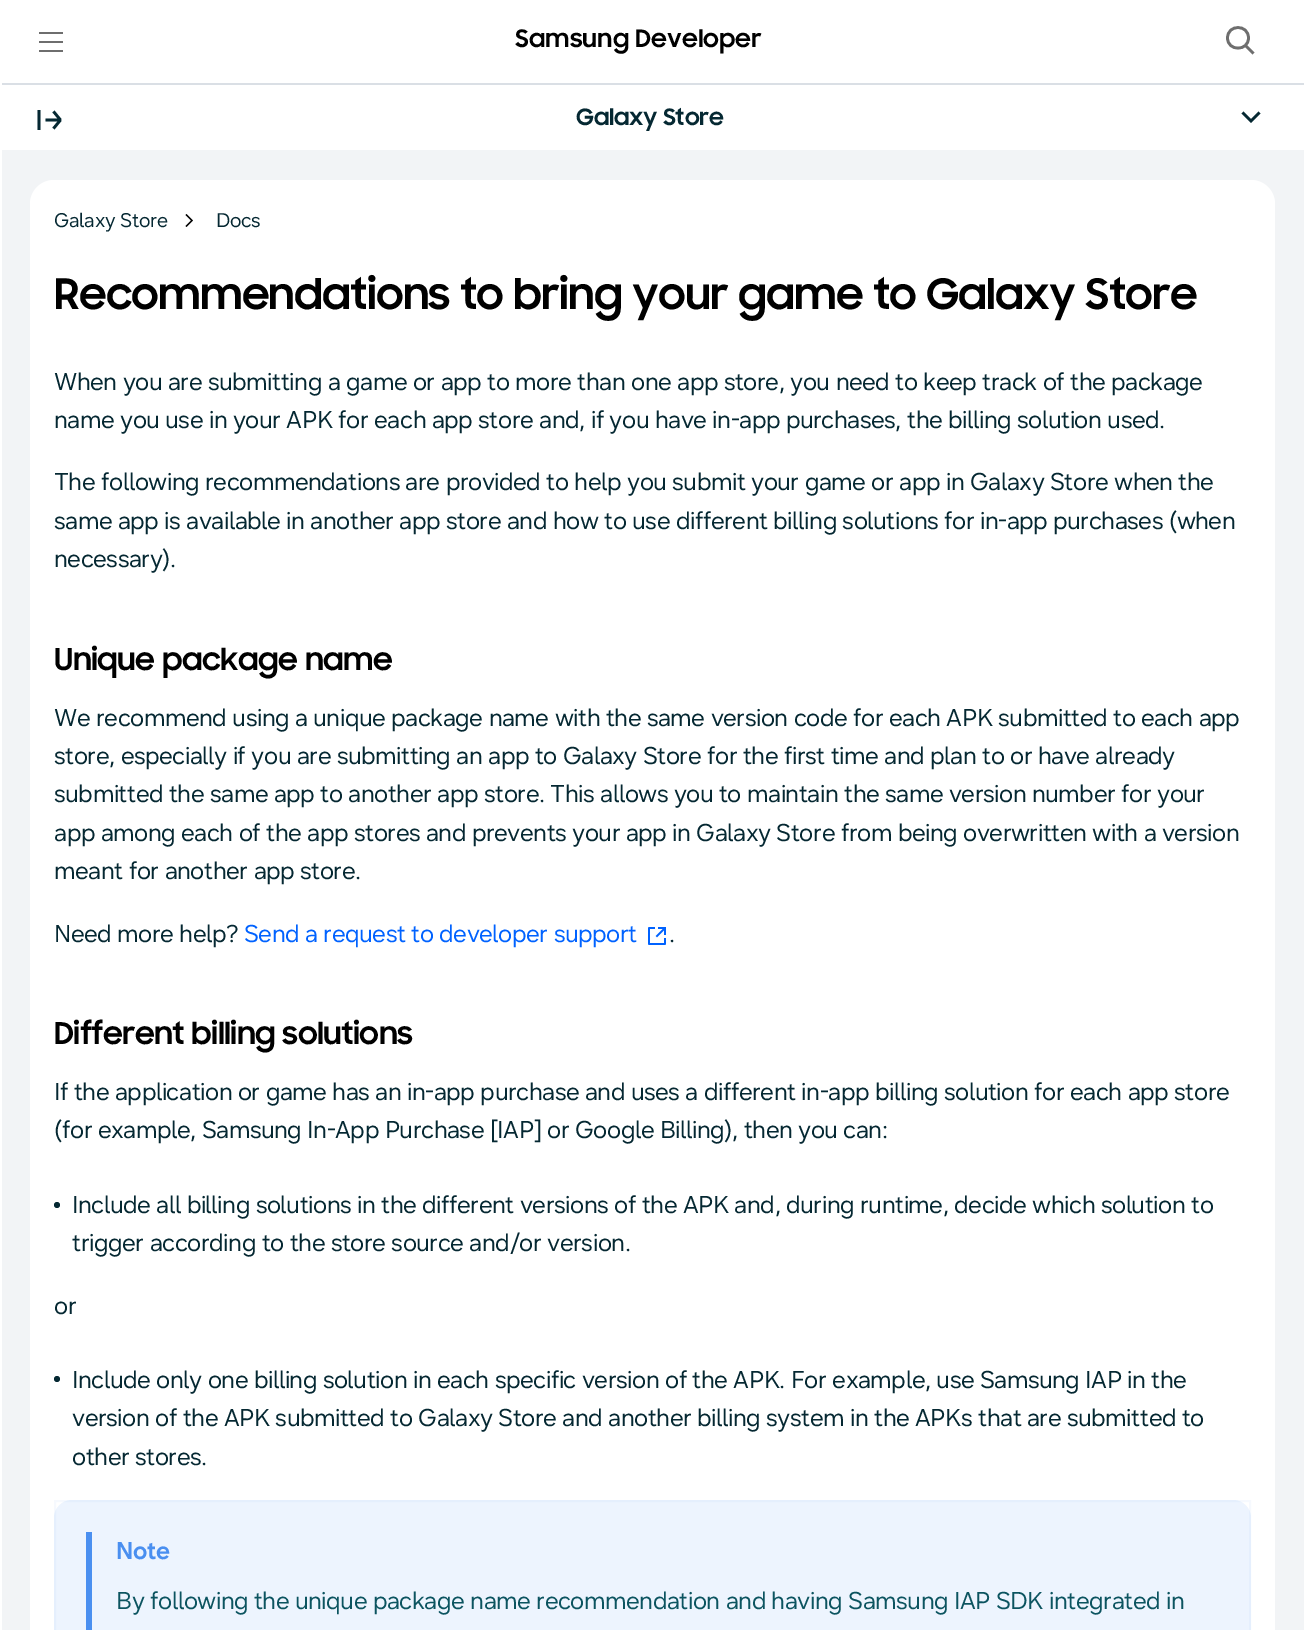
%!PS
<< /PageSize [1304 1630] /PageUsesTransparency true >> setpagedevice
/alpha { dup .setfillconstantalpha .setstrokeconstantalpha } def
/roundrect { 5 dict begin { /r /h /w /y /x } { exch def } forall
  x r add y moveto x w add y 2 copy h add r arct x w add y h add x 1 index r arct
  x y h add x y r arct x y 2 copy exch w add exch r arct closepath end } def
/picture { 5 dict begin { /h /w /y /x /name } { exch def } forall
  gsave x y translate w h scale
  w h 8 [w 0 0 h 0 0] name (r) file false 3 colorimage grestore end } def
0 .pushpdf14devicefilter
0 1630 translate 1 -1 scale
4 setmiterlimit
1 setgray
0 0 1304 1630 rectfill
0.855 0.875 0.898 setrgbcolor
0 83 1304 2 rectfill
0.431 setgray
39 32 24 2 rectfill
39 41 24 2 rectfill
39 50 24 2 rectfill
/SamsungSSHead-Bold [24 0 0 -24 0 0] selectfont
0 setgray
515 47 moveto (Samsung Developer) show
0.431 setgray
2.7 setlinewidth
newpath 1253.5 53.5 moveto 1245 45 lineto 1248.5 38 moveto 1248.5 51.5 1227.5 51.5 1227.5 38 curveto 1227.5 24 1248.5 24 1248.5 38 curveto closepath stroke
1 setgray
0 83 2 2 rectfill
0.02 0.157 0.196 setrgbcolor
newpath 45.5 120 moveto 60.5 120 lineto 60.5 120 moveto 53.5 111.5 lineto 60.5 120 moveto 53.5 128.5 lineto 39 110 moveto 39 130 lineto stroke
/SamsungSSHead-Bold [22.5 0 0 -22.5 0 0] selectfont
576 125 moveto -0.25 0 (Galaxy Store) ashow
newpath 1251 119 moveto 1258.5 111.5 lineto 1260.5 113.5 lineto 1251 123 lineto 1241.5 113.5 lineto 1243.5 111.5 lineto closepath fill
0.949 0.957 0.965 setrgbcolor
2 150 1302 1480 rectfill
1 setgray
30 180 1245 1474 24 roundrect fill
/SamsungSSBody-Regular [19.5 0 0 -19.5 0 0] selectfont
0.02 0.157 0.196 setrgbcolor
54 227 moveto -0.25 0 (Galaxy Store) ashow
0 setgray
1.2 setlinewidth
newpath 186 214.5 moveto 192 220.5 lineto 186 226.5 lineto stroke
0.02 0.157 0.196 setrgbcolor
216 227 moveto -0.48 0 (Docs) ashow
/SamsungSSHead-Bold [42 0 0 -42 0 0] selectfont
0 setgray
54 309 moveto -0.85 0 (Recommendations to bring your game to Galaxy Store) ashow
/SamsungSSBody-Regular [24 0 0 -24 0 0] selectfont
0.02 0.157 0.196 setrgbcolor
54 390 moveto -0.48 0 (When you are submitting a game or app to more than one app store, you need to keep track of the package) ashow
54 428 moveto -0.48 0 (name you use in your APK for each app store and, if you have in-app purchases, the billing solution used.) ashow
54 490 moveto -0.48 0 (The following recommendations are provided to help you submit your game or app in Galaxy Store when the) ashow
54 529 moveto -0.48 0 (same app is available in another app store and how to use different billing solutions for in-app purchases \(when) ashow
54 567 moveto -0.48 0 (necessary\).) ashow
/SamsungSSHead-Bold [30 0 0 -30 0 0] selectfont
0 setgray
54 670 moveto -0.6 0 (Unique package name) ashow
/SamsungSSBody-Regular [24 0 0 -24 0 0] selectfont
0.02 0.157 0.196 setrgbcolor
54 726 moveto -0.48 0 (We recommend using a unique package name with the same version code for each APK submitted to each app) ashow
54 764 moveto -0.48 0 (store, especially if you are submitting an app to Galaxy Store for the first time and plan to or have already) ashow
54 802 moveto -0.48 0 (submitted the same app to another app store. This allows you to maintain the same version number for your) ashow
54 841 moveto -0.48 0 (app among each of the app stores and prevents your app in Galaxy Store from being overwritten with a version) ashow
54 879 moveto -0.48 0 (meant for another app store.) ashow
54 942 moveto -0.48 0 (Need more help?) ashow
0 0.384 1 setrgbcolor
244 942 moveto -0.48 0 (Send a request to developer support) ashow
(img1.rgb) 648 927 18 18 picture
0.02 0.157 0.196 setrgbcolor
669 942 moveto -0.48 0 (.) ashow
/SamsungSSHead-Bold [30 0 0 -30 0 0] selectfont
0 setgray
54 1044 moveto -0.6 0 (Different billing solutions) ashow
/SamsungSSBody-Regular [24 0 0 -24 0 0] selectfont
0.02 0.157 0.196 setrgbcolor
54 1100 moveto -0.48 0 (If the application or game has an in-app purchase and uses a different in-app billing solution for each app store) ashow
54 1138 moveto -0.48 0 (\(for example, Samsung In-App Purchase [IAP] or Google Billing\), then you can:) ashow
newpath 57 1205 3 0 360 arc closepath fill
72 1213 moveto -0.48 0 (Include all billing solutions in the different versions of the APK and, during runtime, decide which solution to) ashow
72 1251 moveto -0.48 0 (trigger according to the store source and/or version.) ashow
54 1314 moveto -0.48 0 (or) ashow
newpath 57 1379 3 0 360 arc closepath fill
72 1388 moveto -0.48 0 (Include only one billing solution in each specific version of the APK. For example, use Samsung IAP in the) ashow
72 1426 moveto -0.48 0 (version of the APK submitted to Galaxy Store and another billing system in the APKs that are submitted to) ashow
72 1465 moveto -0.48 0 (other stores.) ashow
0.929 0.957 0.996 setrgbcolor
54 1500 1197 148 18 roundrect fill
0.05 alpha
0.29 0.561 0.941 setrgbcolor
2 setlinewidth
55 1501 1195 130 rectstroke
1 alpha
86 1532 6 98 rectfill
/SamsungSSBody-Bold [24 0 0 -24 0 0] selectfont
116 1559 moveto -0.48 0 (Note) ashow
/SamsungSSBody-Regular [24 0 0 -24 0 0] selectfont
0.047 0.329 0.376 setrgbcolor
116 1609 moveto -0.48 0 (By following the unique package name recommendation and having Samsung IAP SDK integrated in) ashow
.poppdf14devicefilter showpage
